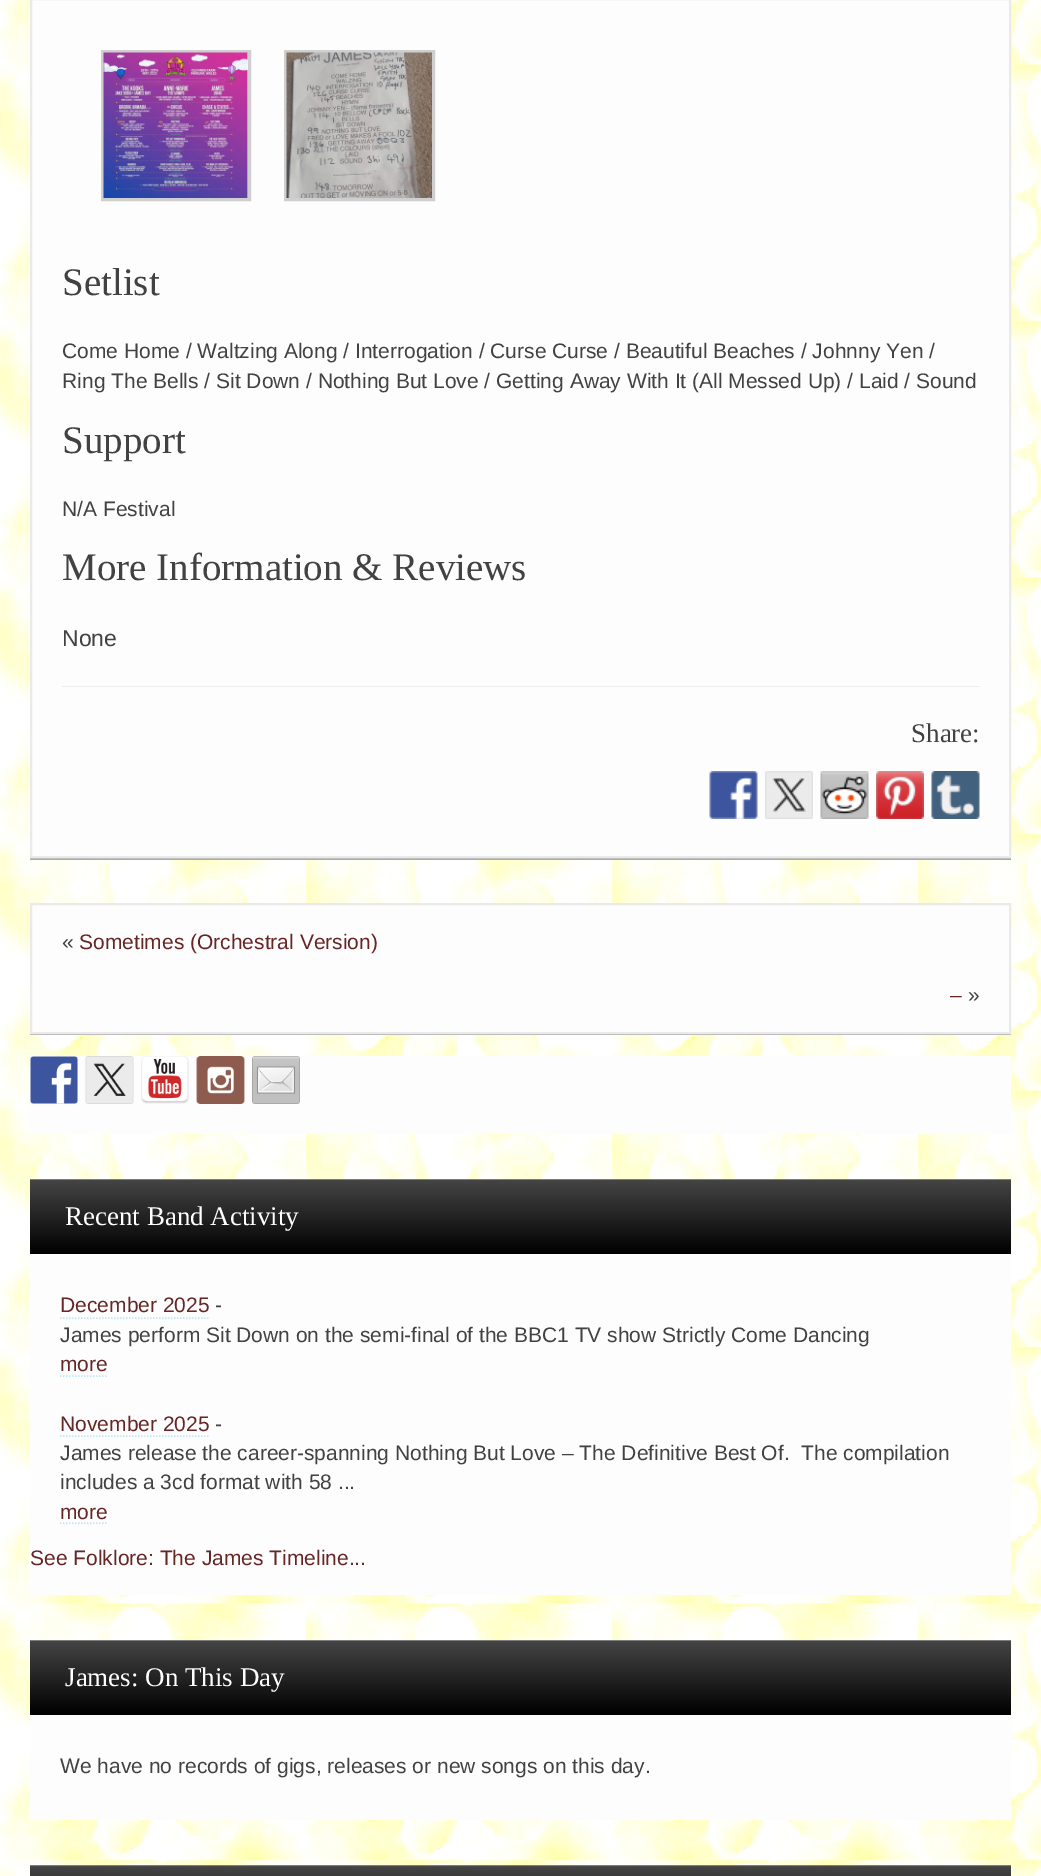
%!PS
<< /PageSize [1041 1876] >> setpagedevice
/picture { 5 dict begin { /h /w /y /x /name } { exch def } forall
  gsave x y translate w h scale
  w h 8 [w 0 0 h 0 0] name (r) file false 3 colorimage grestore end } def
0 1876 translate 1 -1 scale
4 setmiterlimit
1 setgray
0 0 1041 1876 rectfill
(img1.rgb) 0 0 1041 1876 picture
0.678 setgray
30 858 981 2 rectfill
0.992 setgray
newpath 31 -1 moveto 1010 -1 lineto 1010 857 lineto 31 857 lineto closepath gsave fill grestore
0.918 setgray
2 setlinewidth
stroke
0.812 setgray
3 setlinewidth
102.5 51.5 147 148 rectstroke
(img2.rgb) 103 52 145 146 picture
285.5 51.5 148 148 rectstroke
(img3.rgb) 286 52 146 146 picture
/LiberationSerif-Regular [39 0 0 -39 0 0] selectfont
0.259 setgray
62 295 moveto (Setlist) show
/LiberationSans-Regular [21 0 0 -21 0 0] selectfont
62 358 moveto (Come Home / Waltzing Along / Interrogation / Curse Curse / Beautiful Beaches / Johnny Yen /) show
62 388 moveto (Ring The Bells / Sit Down / Nothing But Love / Getting Away With It \(All Messed Up\) / Laid / Sound) show
/LiberationSerif-Regular [39 0 0 -39 0 0] selectfont
62 453 moveto (Support) show
/LiberationSans-Regular [21 0 0 -21 0 0] selectfont
62 516 moveto (N/A Festival) show
/LiberationSerif-Regular [39 0 0 -39 0 0] selectfont
62 580 moveto (More Information & Reviews) show
/LiberationSans-Regular [23 0 0 -23 0 0] selectfont
62 646 moveto (None) show
0.933 setgray
62 686 918 1 rectfill
/LiberationSerif-Regular [27 0 0 -27 0 0] selectfont
0.259 setgray
911 742 moveto (Share:) show
(img4.rgb) 709 771 49 48 picture
(img5.rgb) 765 771 48 48 picture
(img6.rgb) 820 771 49 48 picture
(img7.rgb) 876 771 48 48 picture
(img8.rgb) 931 771 49 48 picture
0.678 setgray
30 1034 981 1 rectfill
0.992 setgray
newpath 31 904 moveto 1010 904 lineto 1010 1033 lineto 31 1033 lineto closepath gsave fill grestore
0.918 setgray
2 setlinewidth
stroke
/LiberationSans-Regular [21 0 0 -21 0 0] selectfont
0.259 setgray
62 949 moveto («) show
0.4 0.149 0.149 setrgbcolor
79 949 moveto (Sometimes \(Orchestral Version\)) show
950 1002 moveto (–) show
0.259 setgray
968 1002 moveto (») show
0.992 setgray
30 1056 981 78 rectfill
(img9.rgb) 30 1056 48 48 picture
(img10.rgb) 85 1056 49 48 picture
(img11.rgb) 141 1056 48 48 picture
(img12.rgb) 196 1056 49 48 picture
(img13.rgb) 252 1056 48 48 picture
30 1254 981 341 rectfill
gsave newpath 30 1179 moveto 1011 1179 lineto 1011 1254 lineto 30 1254 lineto closepath clip newpath
<< /ShadingType 2 /ColorSpace /DeviceRGB /Coords [521 1179 521 1254] /Extend [true true] /Function << /FunctionType 3 /Domain [0 1] /Functions [<< /FunctionType 2 /Domain [0 1] /C0 [0.6 0.6 0.6] /C1 [0.267 0.267 0.267] /N 1 >> << /FunctionType 2 /Domain [0 1] /C0 [0.267 0.267 0.267] /C1 [0 0 0] /N 1 >>] /Bounds [0.02] /Encode [0 1 0 1] >> >> shfill grestore
/LiberationSerif-Regular [27 0 0 -27 0 0] selectfont
1 setgray
65 1225 moveto (Recent Band Activity) show
/LiberationSans-Regular [21 0 0 -21 0 0] selectfont
0.4 0.149 0.149 setrgbcolor
60 1312 moveto (December 2025) show
0.773 0.898 0.957 setrgbcolor
1.5 setlinewidth
[1.5 1.5] 0 setdash
newpath 60 1318 moveto 210 1318 lineto stroke
0.259 setgray
215 1312 moveto (-) show
60 1342 moveto (James perform Sit Down on the semi-final of the BBC1 TV show Strictly Come Dancing) show
0.4 0.149 0.149 setrgbcolor
60 1371 moveto (more) show
0.773 0.898 0.957 setrgbcolor
newpath 60 1376 moveto 108 1376 lineto stroke
0.4 0.149 0.149 setrgbcolor
60 1431 moveto (November 2025) show
0.773 0.898 0.957 setrgbcolor
newpath 60 1436 moveto 210 1436 lineto stroke
0.259 setgray
215 1431 moveto (-) show
60 1460 moveto (James release the career-spanning Nothing But Love – The Definitive Best Of.  The compilation) show
60 1489 moveto (includes a 3cd format with 58 ...) show
0.4 0.149 0.149 setrgbcolor
60 1519 moveto (more) show
0.773 0.898 0.957 setrgbcolor
newpath 60 1523 moveto 108 1523 lineto stroke
0.4 0.149 0.149 setrgbcolor
30 1565 moveto (See Folklore: The James Timeline...) show
0.992 setgray
30 1715 981 105 rectfill
gsave newpath 30 1640 moveto 1011 1640 lineto 1011 1715 lineto 30 1715 lineto closepath clip newpath
<< /ShadingType 2 /ColorSpace /DeviceRGB /Coords [521 1640 521 1715] /Extend [true true] /Function << /FunctionType 3 /Domain [0 1] /Functions [<< /FunctionType 2 /Domain [0 1] /C0 [0.6 0.6 0.6] /C1 [0.267 0.267 0.267] /N 1 >> << /FunctionType 2 /Domain [0 1] /C0 [0.267 0.267 0.267] /C1 [0 0 0] /N 1 >>] /Bounds [0.02] /Encode [0 1 0 1] >> >> shfill grestore
/LiberationSerif-Regular [27 0 0 -27 0 0] selectfont
1 setgray
65 1686 moveto (James: On This Day) show
/LiberationSans-Regular [21 0 0 -21 0 0] selectfont
0.259 setgray
60 1773 moveto (We have no records of gigs, releases or new songs on this day.) show
gsave newpath 30 1865 moveto 1011 1865 lineto 1011 1876 lineto 30 1876 lineto closepath clip newpath
<< /ShadingType 2 /ColorSpace /DeviceRGB /Coords [521 1865 521 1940] /Extend [true true] /Function << /FunctionType 3 /Domain [0 1] /Functions [<< /FunctionType 2 /Domain [0 1] /C0 [0.6 0.6 0.6] /C1 [0.267 0.267 0.267] /N 1 >> << /FunctionType 2 /Domain [0 1] /C0 [0.267 0.267 0.267] /C1 [0 0 0] /N 1 >>] /Bounds [0.02] /Encode [0 1 0 1] >> >> shfill grestore
showpage
